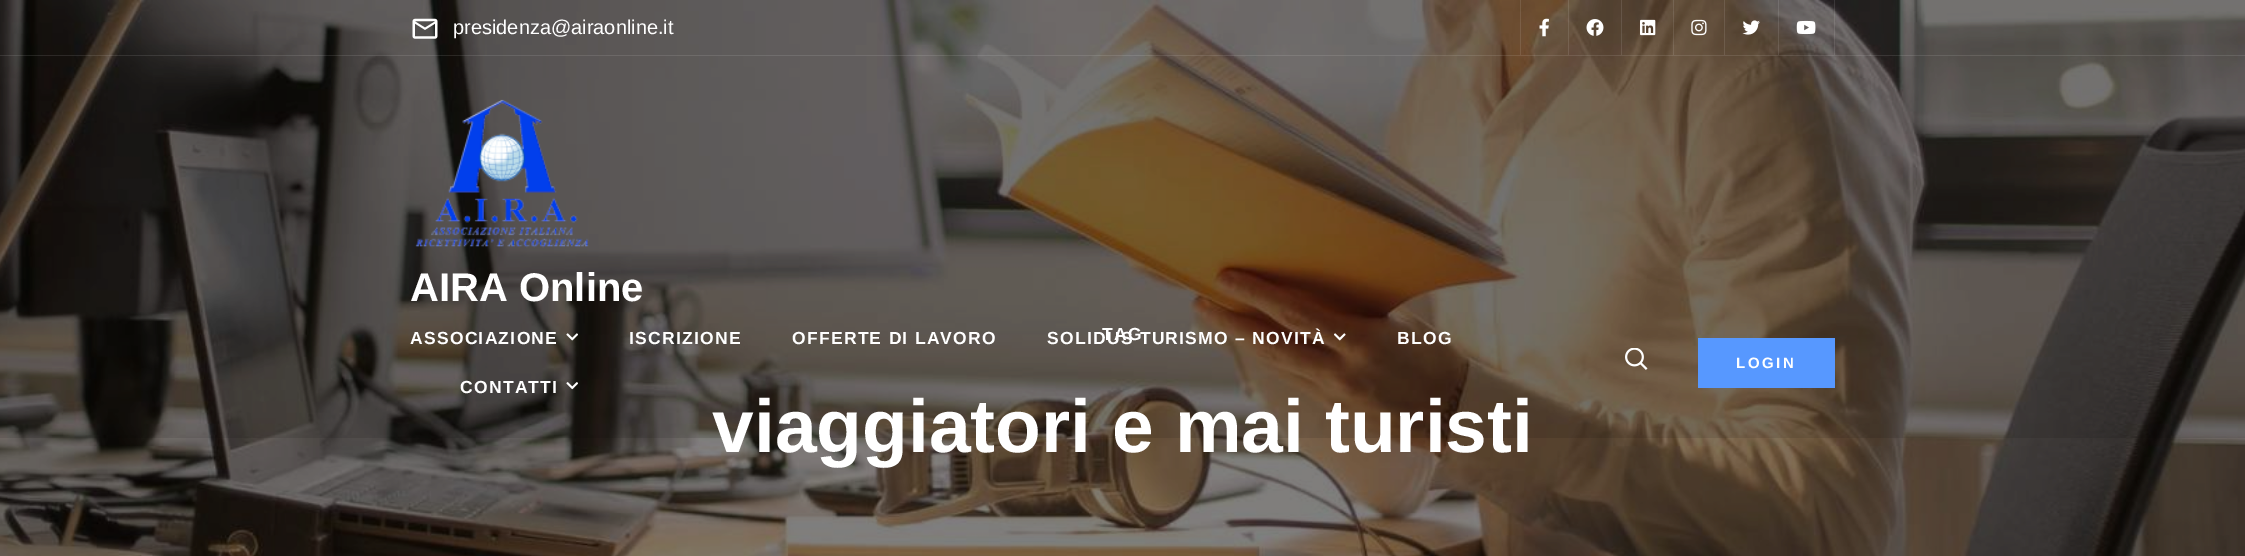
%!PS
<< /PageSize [2245 556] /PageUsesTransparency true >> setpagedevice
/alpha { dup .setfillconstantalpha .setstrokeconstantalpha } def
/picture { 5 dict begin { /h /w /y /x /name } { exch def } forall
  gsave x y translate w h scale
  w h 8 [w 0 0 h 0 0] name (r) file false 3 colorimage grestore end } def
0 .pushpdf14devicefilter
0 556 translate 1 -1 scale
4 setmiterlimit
1 setgray
0 0 2245 556 rectfill
(img13.rgb) 0 0 2245 556 picture
0.1 alpha
0 setgray
0 0 2245 438 rectfill
1 setgray
0 55 2245 1 rectfill
1 alpha
(img1.rgb) 412 18 26 21 picture
/LiberationSans-Regular [20 0 0 -20 0 0] selectfont
453 34 moveto (presidenza@airaonline.it) show
0.1 alpha
1520 0 1 55 rectfill
1568 0 1 55 rectfill
1 alpha
(img2.rgb) 1539 18 10 19 picture
0.1 alpha
1621 0 1 55 rectfill
1 alpha
(img3.rgb) 1586 19 18 17 picture
0.1 alpha
1673 0 1 55 rectfill
1 alpha
(img4.rgb) 1640 19 16 17 picture
0.1 alpha
1724 0 1 55 rectfill
1 alpha
(img5.rgb) 1691 19 16 17 picture
0.1 alpha
1778 0 1 55 rectfill
1 alpha
(img6.rgb) 1742 20 18 15 picture
0.1 alpha
1834 0 1 55 rectfill
1 alpha
(img7.rgb) 1796 20 20 15 picture
(img8.rgb) 415 99 174 149 picture
/LiberationSans-Bold [40 0 0 -40 0 0] selectfont
410 301 moveto (AIRA Online) show
/LiberationSans-Bold [17.5 0 0 -17.5 0 0] selectfont
410 344 moveto 1.25 0 (ASSOCIAZIONE) ashow
(img9.rgb) 566 333 12 8 picture
629 344 moveto 1.25 0 (ISCRIZIONE) ashow
792 344 moveto 1.25 0 (OFFERTE DI LAVORO) ashow
1102 340 moveto 1.25 0 (TAG) ashow
1047 344 moveto 1.25 0 (SOLIDUS TURISMO – NOVITÀ) ashow
(img10.rgb) 1334 333 12 8 picture
1397 344 moveto 1.25 0 (BLOG) ashow
460 393 moveto 1.25 0 (CONTATTI) ashow
(img11.rgb) 566 382 12 8 picture
(img12.rgb) 1625 348 23 22 picture
0.341 0.596 1 setrgbcolor
1698 338 137 50 rectfill
/LiberationSans-Bold [15 0 0 -15 0 0] selectfont
1 setgray
1736 368 moveto 2.5 0 (LOGIN) ashow
/LiberationSans-Bold [75 0 0 -75 0 0] selectfont
712 452 moveto (viaggiatori e mai turisti) show
.poppdf14devicefilter showpage
